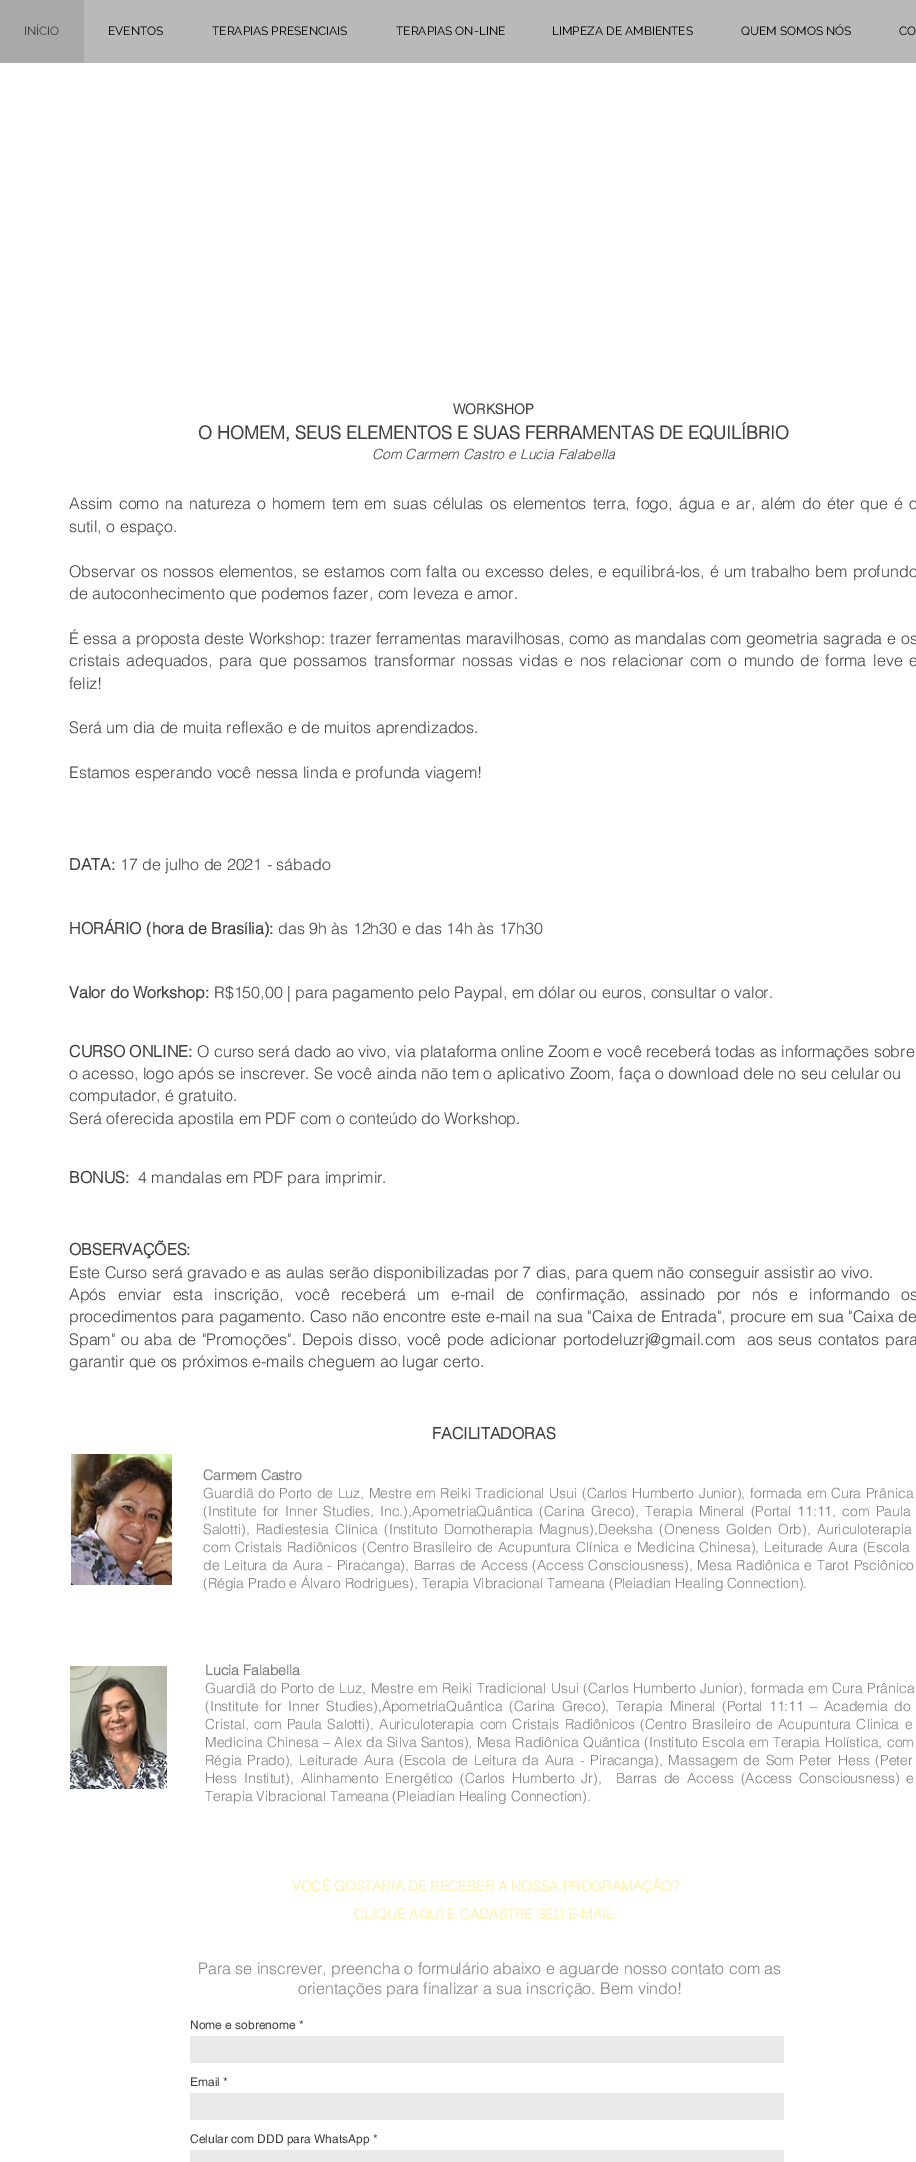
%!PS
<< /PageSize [916 2162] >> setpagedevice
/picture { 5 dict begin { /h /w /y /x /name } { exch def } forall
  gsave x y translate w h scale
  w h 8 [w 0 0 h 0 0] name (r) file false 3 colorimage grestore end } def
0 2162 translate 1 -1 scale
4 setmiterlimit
1 setgray
0 0 916 2162 rectfill
0.663 setgray
0 0 84 63 rectfill
/Raleway-Regular [12 0 0 -12 0 0] selectfont
0.251 setgray
24 35 moveto (INÍCIO) show
0.725 setgray
84 0 832 63 rectfill
0 setgray
108 35 moveto (EVENTOS) show
212 35 moveto (TERAPIAS PRESENCIAIS) show
396 35 moveto (TERAPIAS ON-LINE) show
552 35 moveto (LIMPEZA DE AMBIENTES) show
741 35 moveto (QUEM SOMOS NÓS) show
899 35 moveto (CO) show
/helvetica-Bold [14 0 0 -14 0 0] selectfont
0.251 setgray
453 414 moveto (WORKSHOP) show
/helvetica-Bold [18 0 0 -18 0 0] selectfont
198 439 moveto (O HOMEM, SEUS ELEMENTOS E SUAS FERRAMENTAS DE EQUILÍBRIO) show
/helvetica-LightItalic [14 0 0 -14 0 0] selectfont
372 459 moveto (Com Carmem Castro e Lucia Falabella) show
/helvetica-Light [16 0 0 -16 0 0] selectfont
69 509 moveto 1.7 0 32 (Assim como na natureza o homem tem em suas células os elementos terra, fogo, água e ar, além do éter que é o) widthshow
69 532 moveto (sutil, o espaço.) show
69 577 moveto 0.75 0 32 (Observar os nossos elementos, se estamos com falta ou excesso deles, e equilibrá-los, é um trabalho bem profundo) widthshow
69 599 moveto (de autoconhecimento que podemos fazer, com leveza e amor.) show
69 644 moveto 0.25 0 32 (É essa a proposta deste Workshop: trazer ferramentas maravilhosas, como as mandalas com geometria sagrada e os) widthshow
69 666 moveto 2.25 0 32 (cristais adequados, para que possamos transformar nossas vidas e nos relacionar com o mundo de forma leve e) widthshow
69 689 moveto (feliz!) show
69 733 moveto (Será um dia de muita reflexão e de muitos aprendizados.) show
69 778 moveto (Estamos esperando você nessa linda e profunda viagem!) show
/helvetica-Bold [16 0 0 -16 0 0] selectfont
69 870 moveto (DATA:) show
/helvetica-Light [16 0 0 -16 0 0] selectfont
120 870 moveto (17 de julho de 2021 - sábado) show
/helvetica-Bold [16 0 0 -16 0 0] selectfont
69 934 moveto (HORÁRIO \(hora de Brasília\):) show
/helvetica-Light [16 0 0 -16 0 0] selectfont
278 934 moveto (das 9h às 12h30 e das 14h às 17h30) show
/helvetica-Bold [16 0 0 -16 0 0] selectfont
69 998 moveto (Valor do Workshop:) show
/helvetica-Light [16 0 0 -16 0 0] selectfont
214 998 moveto (R$150,00 | para pagamento pelo Paypal, em dólar ou euros, consultar o valor.) show
/helvetica-Bold [16 0 0 -16 0 0] selectfont
69 1057 moveto (CURSO ONLINE:) show
/helvetica-Light [16 0 0 -16 0 0] selectfont
197 1057 moveto (O curso será dado ao vivo, via plataforma online Zoom e você receberá todas as informações sobre) show
69 1079 moveto (o acesso, logo após se inscrever. Se você ainda não tem o aplicativo Zoom, faça o download dele no seu celular ou) show
69 1101 moveto (computador, é gratuito.) show
69 1124 moveto (Será oferecida apostila em PDF com o conteúdo do Workshop.) show
/helvetica-Bold [16 0 0 -16 0 0] selectfont
69 1183 moveto (BONUS:) show
/helvetica-Light [16 0 0 -16 0 0] selectfont
138 1183 moveto (4 mandalas em PDF para imprimir.) show
/helvetica-Bold [16 0 0 -16 0 0] selectfont
69 1255 moveto (OBSERVAÇÕES:) show
/helvetica-Light [16 0 0 -16 0 0] selectfont
69 1278 moveto (Este Curso será gravado e as aulas serão disponibilizadas por 7 dias, para quem não conseguir assistir ao vivo.) show
69 1300 moveto 6.9 0 32 (Após enviar esta inscrição, você receberá um e-mail de confirmação, assinado por nós e informando os) widthshow
69 1322 moveto 0.25 0 32 (procedimentos para pagamento. Caso não encontre este e-mail na sua "Caixa de Entrada", procure em sua "Caixa de) widthshow
69 1345 moveto 1.25 0 32 (Spam" ou aba de "Promoções". Depois disso, você pode adicionar) widthshow
563 1345 moveto (portodeluzrj@gmail.com) show
747 1345 moveto 1.25 0 32 (aos seus contatos para) widthshow
69 1367 moveto (garantir que os próximos e-mails cheguem ao lugar certo.) show
/helvetica-Bold [16 0 0 -16 0 0] selectfont
432 1439 moveto (FACILITADORAS) show
(img1.rgb) 71 1454 101 131 picture
/helvetica-Bold [14 0 0 -14 0 0] selectfont
0.502 setgray
203 1480 moveto (Carmem Castro) show
/helvetica-Light [14 0 0 -14 0 0] selectfont
203 1498 moveto 0.8 0 32 (Guardiã do Porto de Luz, Mestre em Reiki Tradicional Usui \(Carlos Humberto Junior\), formada em Cura Prânica) widthshow
203 1516 moveto 2.25 0 32 (\(Institute for Inner Studies, Inc.\), Apometria Quântica \(Carina Greco\), Terapia Mineral \(Portal 11:11, com Paula) widthshow
203 1534 moveto 2.25 0 32 (Salotti\), Radiestesia Clínica \(Instituto Domotherapia Magnus\), Deeksha \(Oneness Golden Orb\), Auriculoterapia) widthshow
203 1552 moveto 1.1 0 32 (com  Cristais Radiônicos \(Centro Brasileiro de Acupuntura Clínica e Medicina Chinesa\), Leitura de Aura \(Escola) widthshow
203 1570 moveto 0.9 0 32 (de Leitura da Aura - Piracanga\), Barras de Access \(Access Consciousness\), Mesa Radiônica e Tarot Psciônico) widthshow
203 1588 moveto (\(Régia Prado e Álvaro Rodrigues\), Terapia Vibracional Tameana \(Pleiadian Healing Connection\).) show
(img2.rgb) 70 1666 97 123 picture
/helvetica-Bold [14 0 0 -14 0 0] selectfont
205 1675 moveto (Lucia Falabella) show
/helvetica-Light [14 0 0 -14 0 0] selectfont
205 1693 moveto 0.75 0 32 (Guardiã do Porto de Luz, Mestre em Reiki Tradicional Usui \(Carlos Humberto Junior\), formada em Cura Prânica) widthshow
205 1711 moveto 2.6 0 32 (\(Institute for Inner Studies\), Apometria Quântica \(Carina Greco\), Terapia Mineral \(Portal 11:11 – Academia do) widthshow
205 1729 moveto 1.6 0 32 (Cristal, com Paula Salotti\), Auriculoterapia com  Cristais Radiônicos \(Centro Brasileiro de Acupuntura Clinica e) widthshow
205 1747 moveto 0.6 0 32 (Medicina Chinesa – Alex da Silva Santos\), Mesa Radiônica Quântica \(Instituto Escola em Terapia Holística, com) widthshow
205 1765 moveto 1.9 0 32 (Régia Prado\), Leitura de Aura \(Escola de Leitura da Aura - Piracanga\), Massagem de Som Peter Hess \(Peter) widthshow
205 1783 moveto 3.1 0 32 (Hess Institut\), Alinhamento Energético \(Carlos Humberto Jr\),  Barras de Access \(Access Consciousness\) e) widthshow
205 1801 moveto (Terapia Vibracional Tameana \(Pleiadian Healing Connection\).) show
/helvetica-Bold [14 0 0 -14 0 0] selectfont
0.996 0.949 0.682 setrgbcolor
292 1891 moveto (VOCÊ GOSTARIA DE RECEBER A NOSSA PROGRAMAÇÃO?) show
354 1919 moveto (CLIQUE AQUI E CADASTRE SEU E-MAIL.) show
/helvetica-Light [16 0 0 -16 0 0] selectfont
0.502 setgray
198 1974 moveto (Para se inscrever, preencha o formulário abaixo e aguarde nosso contato com as) show
298 1994 moveto (orientações para finalizar a sua inscrição. Bem vindo!) show
/helvetica-Regular [12 0 0 -12 0 0] selectfont
0.251 setgray
190 2029 moveto (Nome e sobrenome *) show
0.914 setgray
190 2036 594 27 rectfill
0.251 setgray
190 2086 moveto (Email *) show
0.914 setgray
190 2093 594 27 rectfill
0.251 setgray
190 2143 moveto (Celular com DDD para WhatsApp *) show
0.914 setgray
190 2150 594 12 rectfill
showpage
